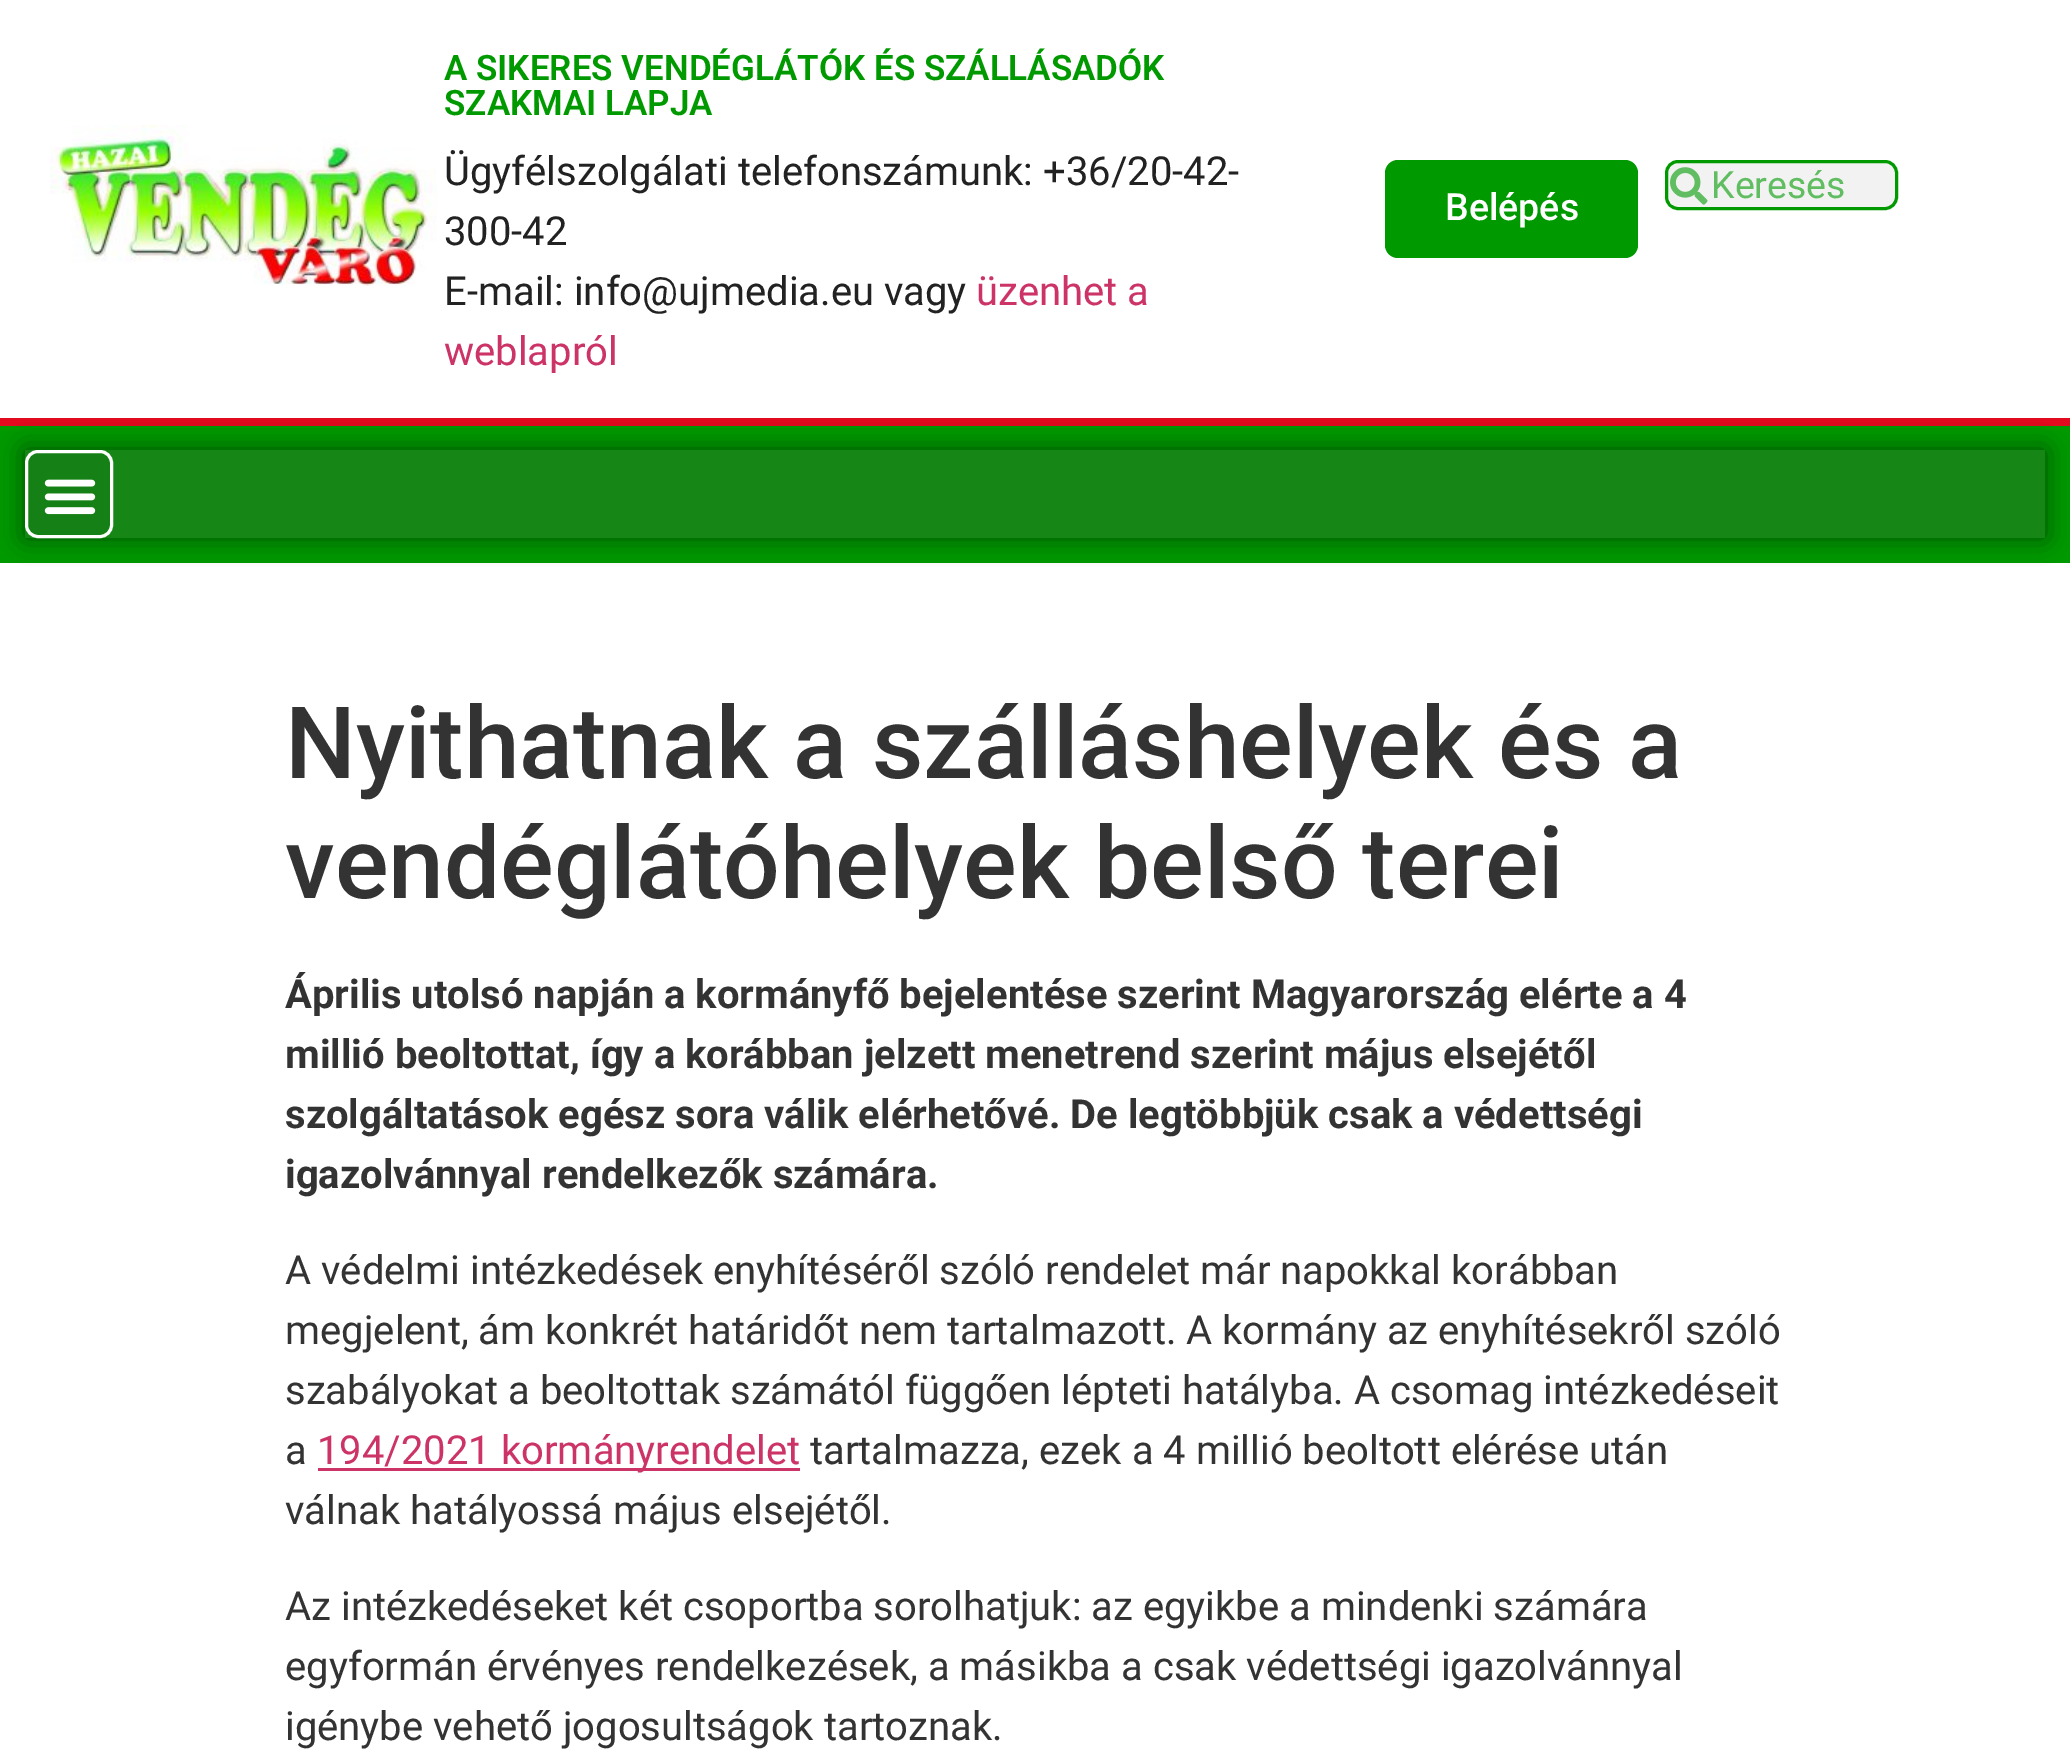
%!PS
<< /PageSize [2070 1763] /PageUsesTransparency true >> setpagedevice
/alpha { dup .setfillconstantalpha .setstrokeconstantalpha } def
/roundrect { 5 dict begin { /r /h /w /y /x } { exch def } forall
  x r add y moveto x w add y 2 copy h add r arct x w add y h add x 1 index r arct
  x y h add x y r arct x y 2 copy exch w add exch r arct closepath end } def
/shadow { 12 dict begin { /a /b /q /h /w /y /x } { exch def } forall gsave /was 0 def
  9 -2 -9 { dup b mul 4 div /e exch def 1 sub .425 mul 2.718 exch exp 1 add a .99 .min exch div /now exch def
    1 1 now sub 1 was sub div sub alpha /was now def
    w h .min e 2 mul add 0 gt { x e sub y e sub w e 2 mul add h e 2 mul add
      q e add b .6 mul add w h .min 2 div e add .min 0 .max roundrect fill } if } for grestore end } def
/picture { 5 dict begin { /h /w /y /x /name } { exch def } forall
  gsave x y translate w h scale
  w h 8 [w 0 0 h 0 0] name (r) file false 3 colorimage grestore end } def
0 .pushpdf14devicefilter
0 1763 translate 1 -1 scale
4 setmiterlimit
1 setgray
0 0 2070 1763 rectfill
(img1.rgb) 50 125 387 161 picture
/Roboto-SemiBold [35 0 0 -35 0 0] selectfont
0 0.6 0 setrgbcolor
444 80 moveto (A SIKERES VENDÉGLÁTÓK ÉS SZÁLLÁSADÓK) show
444 115 moveto (SZAKMAI LAPJA) show
/Roboto-Regular [40 0 0 -40 0 0] selectfont
0.133 setgray
444 185 moveto (Ügyfélszolgálati telefonszámunk: +36/20-42-) show
444 245 moveto (300-42) show
444 305 moveto (E-mail: info@ujmedia.eu vagy) show
0.8 0.2 0.4 setrgbcolor
976 305 moveto (üzenhet a) show
444 365 moveto (weblapról) show
0.953 0.949 0.949 setrgbcolor
1666.5 161.5 230 47 11.5 roundrect gsave fill grestore
0 0.6 0 setrgbcolor
3 setlinewidth
stroke
(img2.rgb) 1670 167 38 38 picture
/Roboto-Regular [37.5 0 0 -37.5 0 0] selectfont
0.38 0.741 0.38 setrgbcolor
1711 198 moveto (Keresés) show
0 0.6 0 setrgbcolor
1385 160 253 98 13 roundrect fill
/Roboto-Medium [37.5 0 0 -37.5 0 0] selectfont
1 setgray
1445 220 moveto (Belépés) show
0 0.6 0 setrgbcolor
0 426 2070 137 rectfill
0.882 0.039 0.118 setrgbcolor
0 418 2070 8 rectfill
0 setgray
25 450 2020 88 0 12.5 0.5 shadow
0.086 0.529 0.086 setrgbcolor
25 450 2020 88 rectfill
0.082 0.502 0.082 setrgbcolor
26.5 451.5 85 85 11.5 roundrect gsave fill grestore
1 setgray
stroke
(img3.rgb) 44 479 52 36 picture
/Roboto-Medium [100 0 0 -100 0 0] selectfont
0.2 setgray
285 778 moveto (Nyithatnak a szálláshelyek és a) show
285 898 moveto (vendéglátóhelyek belső terei) show
/Roboto-Bold [40 0 0 -40 0 0] selectfont
285 1008 moveto (Április utolsó napján a kormányfő bejelentése szerint Magyarország elérte a 4) show
285 1068 moveto (millió beoltottat, így a korábban jelzett menetrend szerint május elsejétől) show
285 1128 moveto (szolgáltatások egész sora válik elérhetővé. De legtöbbjük csak a védettségi) show
285 1188 moveto (igazolvánnyal rendelkezők számára.) show
/Roboto-Regular [40 0 0 -40 0 0] selectfont
285 1284 moveto (A védelmi intézkedések enyhítéséről szóló rendelet már napokkal korábban) show
285 1344 moveto (megjelent, ám konkrét határidőt nem tartalmazott. A kormány az enyhítésekről szóló) show
285 1404 moveto (szabályokat a beoltottak számától függően lépteti hatályba. A csomag intézkedéseit) show
285 1464 moveto (a) show
0.8 0.2 0.4 setrgbcolor
318 1468 482 3 rectfill
317 1464 moveto (194/2021 kormányrendelet) show
0.2 setgray
810 1464 moveto (tartalmazza, ezek a 4 millió beoltott elérése után) show
285 1524 moveto (válnak hatályossá május elsejétől.) show
285 1620 moveto (Az intézkedéseket két csoportba sorolhatjuk: az egyikbe a mindenki számára) show
285 1680 moveto (egyformán érvényes rendelkezések, a másikba a csak védettségi igazolvánnyal) show
285 1740 moveto (igénybe vehető jogosultságok tartoznak.) show
.poppdf14devicefilter showpage
